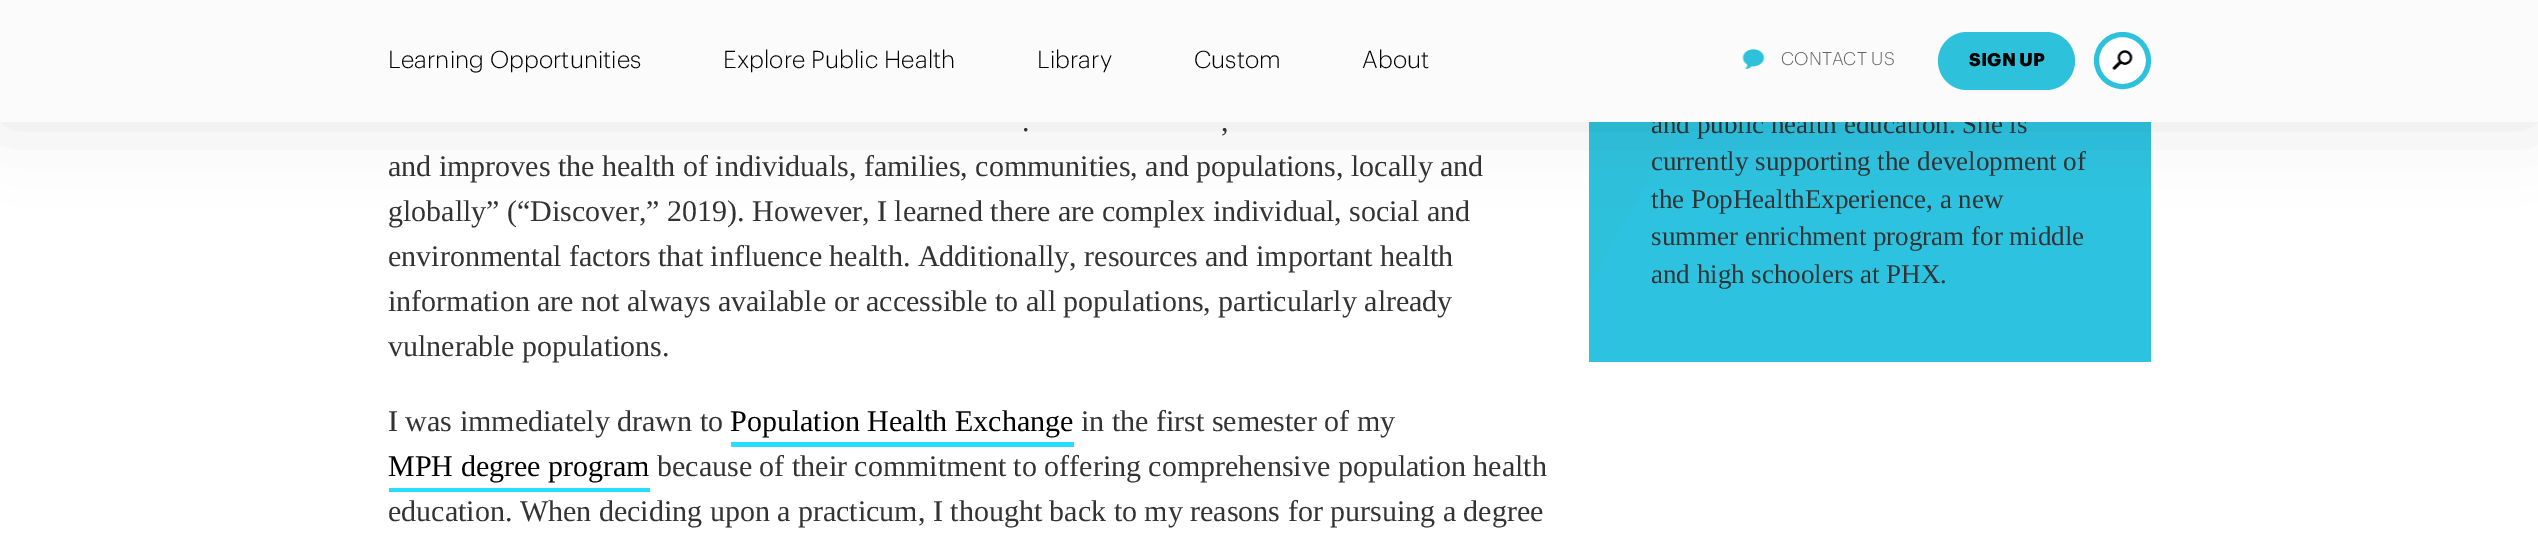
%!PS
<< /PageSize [2538 535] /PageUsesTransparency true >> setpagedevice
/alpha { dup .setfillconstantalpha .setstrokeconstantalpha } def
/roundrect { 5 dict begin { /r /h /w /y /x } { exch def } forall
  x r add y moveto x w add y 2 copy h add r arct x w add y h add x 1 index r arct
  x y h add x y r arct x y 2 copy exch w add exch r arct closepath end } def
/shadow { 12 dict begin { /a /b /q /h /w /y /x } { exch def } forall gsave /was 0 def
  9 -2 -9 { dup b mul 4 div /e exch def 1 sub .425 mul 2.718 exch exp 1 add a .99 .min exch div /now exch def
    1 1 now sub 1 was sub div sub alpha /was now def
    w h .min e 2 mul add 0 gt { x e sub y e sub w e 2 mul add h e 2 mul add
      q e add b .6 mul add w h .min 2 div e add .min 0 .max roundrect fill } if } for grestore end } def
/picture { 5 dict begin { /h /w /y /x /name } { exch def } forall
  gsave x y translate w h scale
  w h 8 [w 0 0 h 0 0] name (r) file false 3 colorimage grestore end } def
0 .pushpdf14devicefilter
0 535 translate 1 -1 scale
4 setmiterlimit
1 setgray
0 0 2538 535 rectfill
0.18 0.757 0.863 setrgbcolor
1589 122 94 165 rectfill
gsave
1589 0 562 362 rectclip
0.176 0.765 0.878 setrgbcolor
newpath 1270 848 moveto 2088 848 lineto 2408 201 lineto 2408 -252 lineto 1895 -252 lineto closepath eofill
grestore
/LiberationSerif-Regular [27 0 0 -27 0 0] selectfont
0.2 setgray
1651 133 moveto (and public health education. She is) show
0.984 setgray
0 0 2538 122 rectfill
(img1.rgb) 1742 49 23 20 picture
gsave
newpath 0 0 moveto 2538 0 lineto 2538 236 lineto 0 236 lineto closepath 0 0 moveto 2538 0 lineto 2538 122 lineto 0 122 lineto closepath eoclip newpath
0 setgray
0 0 2538 122 0 37.5 0.1 shadow
grestore
/Graphik-Light [24 0 0 -24 0 0] selectfont
0 setgray
388 68 moveto (Learning Opportunities) show
723 68 moveto (Explore Public Health) show
1037 68 moveto (Library) show
1194 68 moveto (Custom) show
1362 68 moveto (About) show
/Graphik-Light [18 0 0 -18 0 0] selectfont
0.388 setgray
1781 65 moveto (CONTACT US) show
0.18 0.757 0.863 setrgbcolor
1938 32 137 58 29 roundrect fill
/Graphik-Bold [18 0 0 -18 0 0] selectfont
0 setgray
1969 66 moveto (SIGN UP) show
1 setgray
newpath 2122.5 60.5 26 0 360 arc closepath gsave fill grestore
0.18 0.757 0.863 setrgbcolor
5 setlinewidth
stroke
(img2.rgb) 2112 50 21 20 picture
/LiberationSerif-Regular [30 0 0 -30 0 0] selectfont
0.2 setgray
1022 131 moveto (.) show
1221 131 moveto (,) show
388 176 moveto (and improves the health of individuals, families, communities, and populations, locally and) show
388 221 moveto (globally” \(“Discover,” 2019\). However, I learned there are complex individual, social and) show
388 266 moveto (environmental factors that influence health. Additionally, resources and important health) show
388 311 moveto (information are not always available or accessible to all populations, particularly already) show
388 356 moveto (vulnerable populations.) show
388 431 moveto (I was immediately drawn to) show
0.153 0.871 1 setrgbcolor
731 442 343 5 rectfill
0 setgray
730 431 moveto (Population Health Exchange) show
0.2 setgray
1081 431 moveto (in the first semester of my) show
0.153 0.871 1 setrgbcolor
newpath 389 488 moveto 389 492 lineto 650 492 lineto 650 447 lineto 650 488 lineto closepath fill
0 setgray
388 476 moveto (MPH degree program) show
0.2 setgray
657 476 moveto (because of their commitment to offering comprehensive population health) show
388 521 moveto (education. When deciding upon a practicum, I thought back to my reasons for pursuing a degree) show
/LiberationSerif-Regular [27 0 0 -27 0 0] selectfont
1651 170 moveto (currently supporting the development of) show
1651 208 moveto (the PopHealthExperience, a new) show
1651 245 moveto (summer enrichment program for middle) show
1651 283 moveto (and high schoolers at PHX.) show
.poppdf14devicefilter showpage
